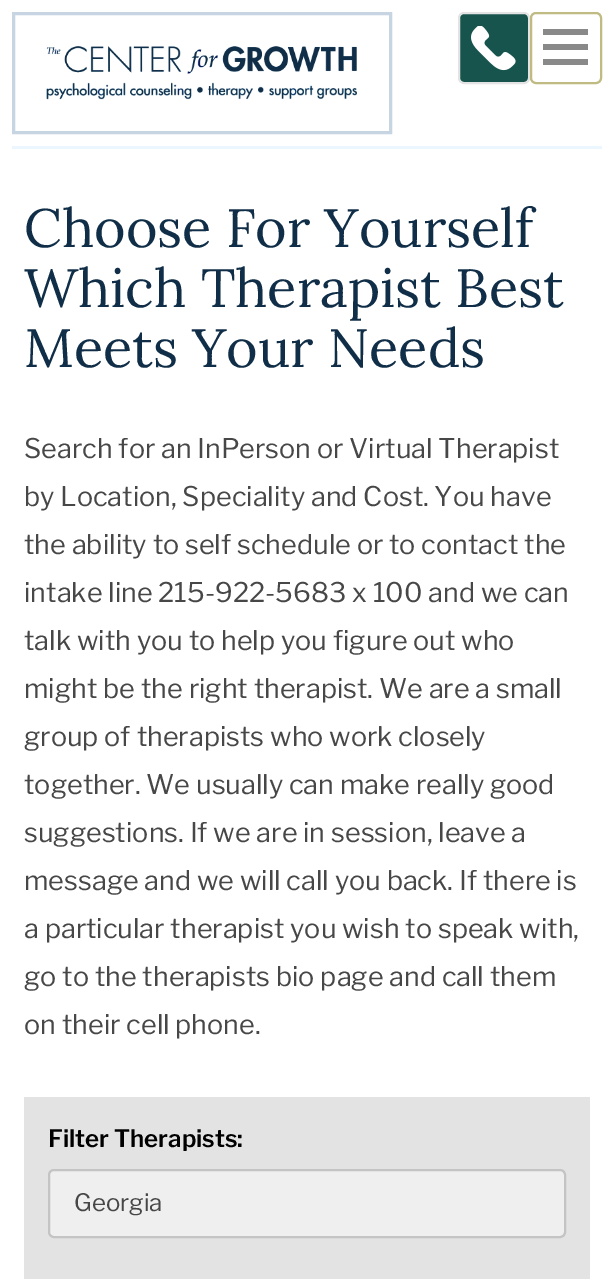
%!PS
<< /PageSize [613 1279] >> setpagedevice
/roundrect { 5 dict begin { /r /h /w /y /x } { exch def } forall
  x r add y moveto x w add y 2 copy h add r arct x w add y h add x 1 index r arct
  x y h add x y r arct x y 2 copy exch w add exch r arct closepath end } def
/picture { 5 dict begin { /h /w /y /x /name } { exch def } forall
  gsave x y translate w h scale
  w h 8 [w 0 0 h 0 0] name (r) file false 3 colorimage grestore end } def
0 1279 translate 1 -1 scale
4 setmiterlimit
1 setgray
0 0 613 1279 rectfill
0.922 0.965 1 setrgbcolor
12 146 590 3 rectfill
0.776 0.835 0.882 setrgbcolor
3 setlinewidth
13.5 13.5 377 119 rectstroke
(img1.rgb) 46 46 311 54 picture
0.09 0.329 0.302 setrgbcolor
459 13 70 70 5 roundrect gsave fill grestore
0.89 setgray
2 setlinewidth
stroke
(img2.rgb) 471 26 45 45 picture
0.753 0.733 0.51 setrgbcolor
531 13 70 70 5 roundrect stroke
0.541 0.537 0.537 setrgbcolor
543 29 45 6 rectfill
543 44 45 6 rectfill
543 59 45 6 rectfill
/Lora-Regular [54 0 0 -54 0 0] selectfont
0.063 0.18 0.278 setrgbcolor
24 247 moveto (Choose For Yourself) show
24 307 moveto (Which Therapist Best) show
24 367 moveto (Meets Your Needs) show
/LibreFranklin-Regular [27 0 0 -27 0 0] selectfont
0.282 0.278 0.278 setrgbcolor
24 458 moveto (Search for an InPerson or Virtual Therapist) show
24 506 moveto (by Location, Speciality and Cost. You have) show
24 554 moveto (the ability to self schedule or to contact the) show
24 602 moveto (intake line 215-922-5683 x 100 and we can) show
24 650 moveto (talk with you to help you figure out who) show
24 698 moveto (might be the right therapist. We are a small) show
24 746 moveto (group of therapists who work closely) show
24 794 moveto (together. We usually can make really good) show
24 842 moveto (suggestions. If we are in session, leave a) show
24 890 moveto (message and we will call you back. If there is) show
24 938 moveto (a particular therapist you wish to speak with,) show
24 986 moveto (go to the therapists bio page and call them) show
24 1034 moveto (on their cell phone.) show
0.89 setgray
24 1097 566 182 rectfill
/LibreFranklin-SemiBold [24 0 0 -24 0 0] selectfont
0 setgray
48 1147 moveto (Filter Therapists:) show
0.937 setgray
49 1170 516 67 5 roundrect gsave fill grestore
0.773 0.769 0.769 setrgbcolor
stroke
/LibreFranklin-Regular [24 0 0 -24 0 0] selectfont
0.282 0.278 0.278 setrgbcolor
74 1211 moveto (Georgia) show
showpage
